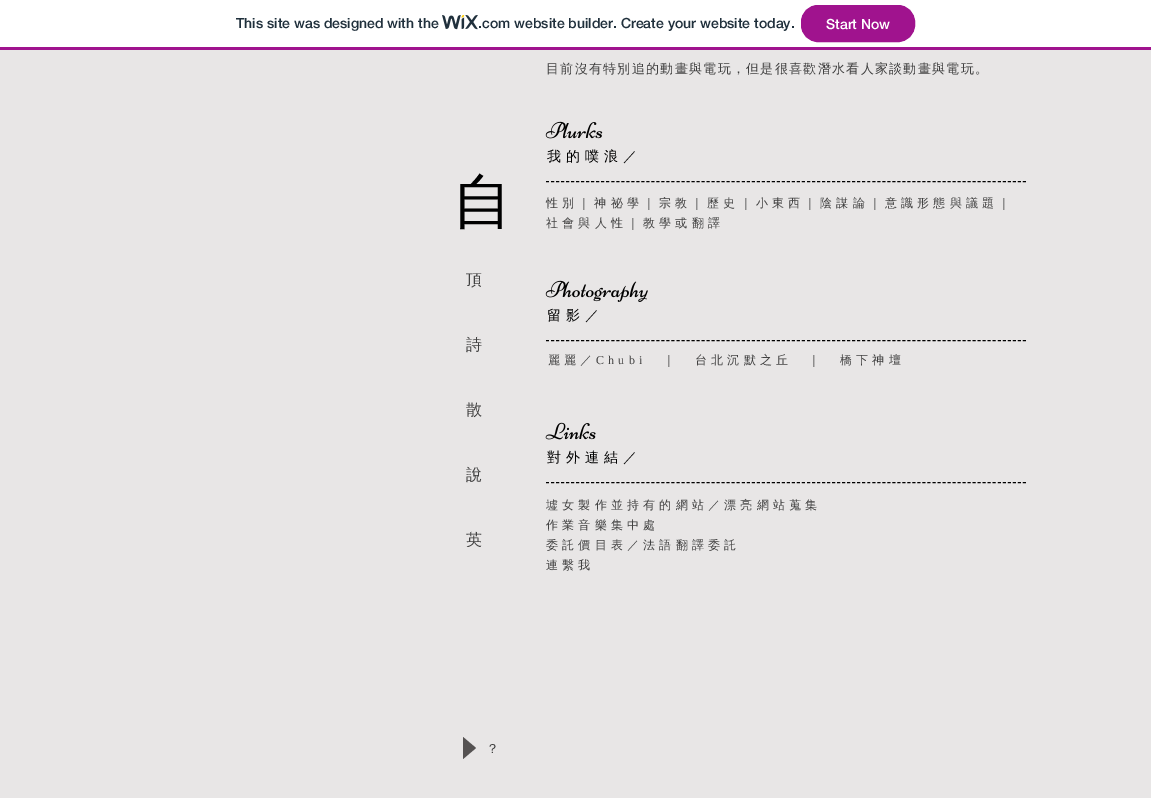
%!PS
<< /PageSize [1151 798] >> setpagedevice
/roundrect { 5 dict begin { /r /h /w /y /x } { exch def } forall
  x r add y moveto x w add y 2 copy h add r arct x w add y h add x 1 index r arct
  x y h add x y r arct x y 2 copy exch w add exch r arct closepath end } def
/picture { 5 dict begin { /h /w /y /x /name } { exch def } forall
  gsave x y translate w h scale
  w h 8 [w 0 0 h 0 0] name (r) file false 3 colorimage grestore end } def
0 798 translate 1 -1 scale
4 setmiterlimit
0.91 0.902 0.902 setrgbcolor
0 0 1151 798 rectfill
1 setgray
0 0 1151 47 rectfill
0.627 0.075 0.557 setrgbcolor
0 47 1151 3 rectfill
/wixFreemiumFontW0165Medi-Medium [14 0 0 -14 0 0] selectfont
0.125 0.188 0.235 setrgbcolor
236 28 moveto (This site was designed with the) show
(img1.rgb) 442 15 36 15 picture
478 28 moveto (.com website builder. Create your website today.) show
0.627 0.075 0.557 setrgbcolor
801.5 5.5 113 36 16.5 roundrect gsave fill grestore
stroke
1 setgray
826 29 moveto (Start Now) show
/WenQuanYiZenHei-Medium [60 0 0 -60 0 0] selectfont
0 setgray
452 222 moveto (自) show
/WenQuanYiZenHei-Medium [13 0 0 -13 0 0] selectfont
0.255 setgray
546 73 moveto 1.3 0 (目前沒有特別追的動畫與電玩，但是很喜歡潛水看人家談動畫與電玩。) ashow
(img2.rgb) 545 121 58 18 picture
/WenQuanYiZenHei-Medium [14 0 0 -14 0 0] selectfont
0 setgray
547 161 moveto 5 0 (我的噗浪／) ashow
[3 2.02] 0 setdash
newpath 546 181.5 moveto 1026 181.5 lineto stroke
/WenQuanYiZenHei-Medium [12 0 0 -12 0 0] selectfont
0.255 setgray
546 207 moveto 4.2 0 (性別｜神祕學｜宗教｜歷史｜小東西｜陰謀論｜意識形態與議題｜) ashow
546 227 moveto 4.2 0 (社會與人性｜教學或翻譯) ashow
(img3.rgb) 545 280 103 22 picture
/WenQuanYiZenHei-Medium [14 0 0 -14 0 0] selectfont
0 setgray
547 320 moveto 5 0 (留影／) ashow
newpath 546 340.5 moveto 1026 340.5 lineto stroke
/WenQuanYiZenHei-Medium [12 0 0 -12 0 0] selectfont
0.255 setgray
548 364 moveto 4.2 0 (麗麗／) ashow
/LiberationSerif-Regular [12 0 0 -12 0 0] selectfont
596 364 moveto 4.2 0 (Chubi) ashow
/WenQuanYiZenHei-Medium [12 0 0 -12 0 0] selectfont
663 364 moveto 4.2 0 (｜) ashow
695 364 moveto 4.2 0 (台北沉默之丘) ashow
808 364 moveto 4.2 0 (｜) ashow
840 364 moveto 4.2 0 (橋下神壇) ashow
(img4.rgb) 545 422 51 18 picture
/WenQuanYiZenHei-Medium [14 0 0 -14 0 0] selectfont
0 setgray
547 462 moveto 5 0 (對外連結／) ashow
newpath 546 482.5 moveto 1026 482.5 lineto stroke
/WenQuanYiZenHei-Medium [12 0 0 -12 0 0] selectfont
0.255 setgray
546 509 moveto 4.2 0 (墟女製作並持有的網站／漂亮網站蒐集) ashow
546 529 moveto 4.2 0 (作業音樂集中處) ashow
546 549 moveto 4.2 0 (委託價目表／法語翻譯委託) ashow
546 569 moveto 4.2 0 (連繫我) ashow
/WenQuanYiZenHei-Medium [16 0 0 -16 0 0] selectfont
466 285 moveto (頂) show
466 350 moveto (詩) show
466 415 moveto (散) show
466 480 moveto (說) show
466 545 moveto (英) show
0.333 0.322 0.322 setrgbcolor
newpath 463 759 moveto 463 737 lineto 476 748 lineto closepath fill
/WenQuanYiZenHei-Medium [13 0 0 -13 0 0] selectfont
0.255 setgray
486 753 moveto (？) show
showpage
